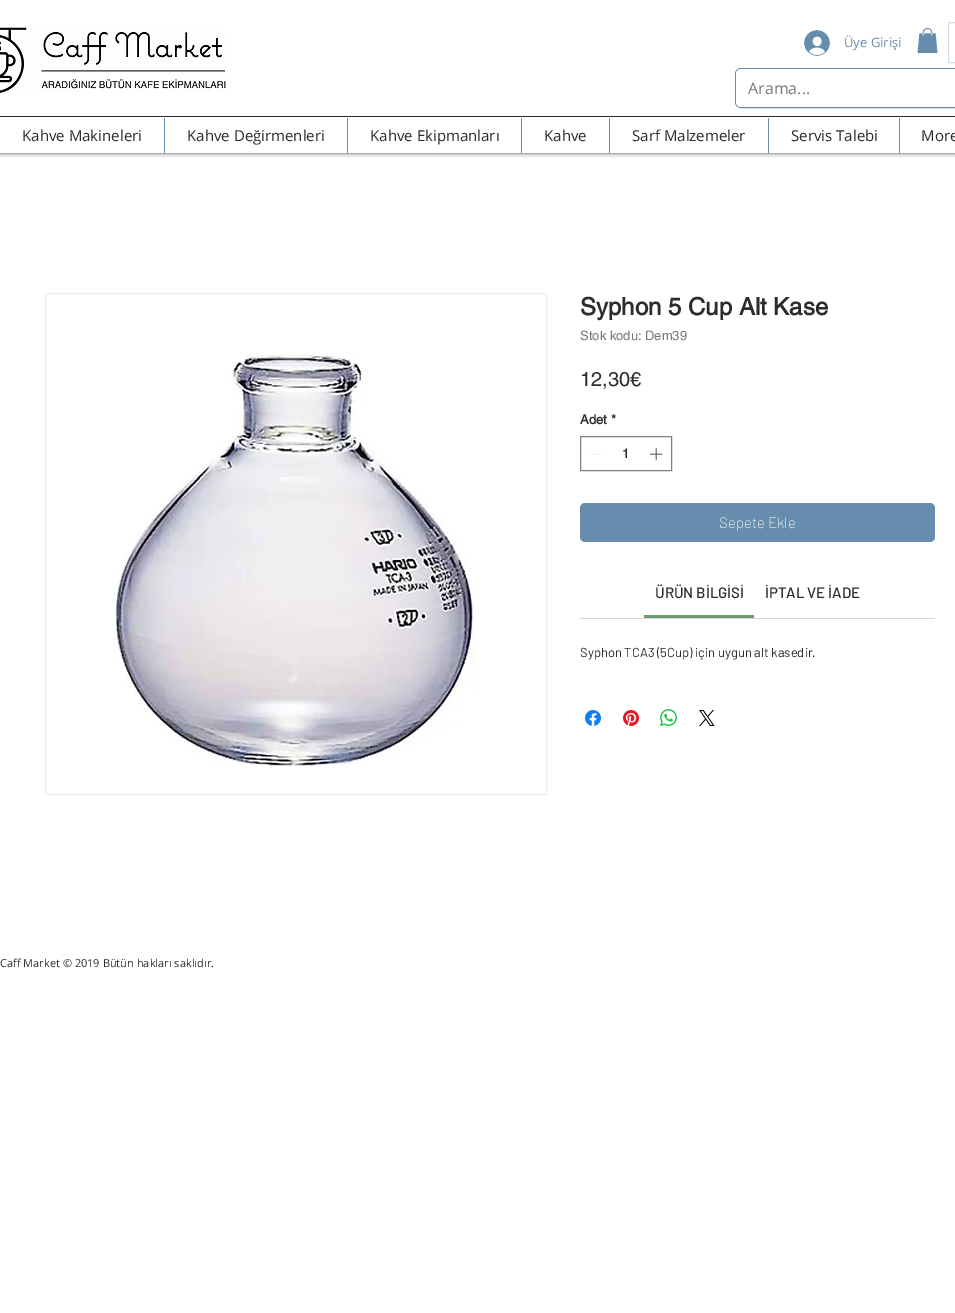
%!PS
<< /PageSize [955 1313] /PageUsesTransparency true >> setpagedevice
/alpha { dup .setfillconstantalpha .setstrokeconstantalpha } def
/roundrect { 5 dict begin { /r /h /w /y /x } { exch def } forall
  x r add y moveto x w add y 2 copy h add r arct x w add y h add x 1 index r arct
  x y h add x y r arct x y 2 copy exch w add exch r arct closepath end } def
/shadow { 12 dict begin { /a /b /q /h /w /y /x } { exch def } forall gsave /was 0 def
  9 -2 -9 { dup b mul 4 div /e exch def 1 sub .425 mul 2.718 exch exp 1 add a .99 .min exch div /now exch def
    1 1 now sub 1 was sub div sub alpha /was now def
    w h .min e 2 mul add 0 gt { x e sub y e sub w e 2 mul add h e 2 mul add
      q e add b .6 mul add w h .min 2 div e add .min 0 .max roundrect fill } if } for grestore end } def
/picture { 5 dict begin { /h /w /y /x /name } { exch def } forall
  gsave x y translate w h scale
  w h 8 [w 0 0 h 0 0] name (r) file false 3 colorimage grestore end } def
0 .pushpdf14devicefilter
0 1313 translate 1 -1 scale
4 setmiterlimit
1 setgray
0 0 955 1313 rectfill
gsave
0 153 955 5 rectclip
0 setgray
0 0 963 153 0 2.5 0.7 shadow
grestore
(img1.rgb) 0 27 226 66 picture
(img2.rgb) 804 30 26 26 picture
/OpenSans-Regular [13 0 0 -13 0 0] selectfont
0.404 0.553 0.682 setrgbcolor
844 47 moveto (Üye Girişi) show
(img3.rgb) 917 28 21 26 picture
0.82 0.867 0.906 setrgbcolor
948.5 22.5 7 40 rectstroke
0.404 0.553 0.682 setrgbcolor
735.5 68.5 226 39 5.5 roundrect stroke
1 setgray
736 69 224 38 5 roundrect fill
/OpenSans-Regular [16 0 0 -16 0 0] selectfont
0.486 0.471 0.471 setrgbcolor
748 94 moveto (Arama...) show
0.173 0.173 0.169 setrgbcolor
0 116 955 1 rectfill
/OpenSans-Regular [15 0 0 -15 0 0] selectfont
22 141 moveto (Kahve Makineleri) show
0.404 0.553 0.682 setrgbcolor
164 118 1 35 rectfill
0.173 0.173 0.169 setrgbcolor
187 141 moveto (Kahve Değirmenleri) show
0.404 0.553 0.682 setrgbcolor
347 118 1 35 rectfill
0.173 0.173 0.169 setrgbcolor
370 141 moveto (Kahve Ekipmanları) show
0.404 0.553 0.682 setrgbcolor
521 118 1 35 rectfill
0.173 0.173 0.169 setrgbcolor
544 141 moveto (Kahve) show
0.404 0.553 0.682 setrgbcolor
609 118 1 35 rectfill
0.173 0.173 0.169 setrgbcolor
632 141 moveto (Sarf Malzemeler) show
0.404 0.553 0.682 setrgbcolor
768 118 1 35 rectfill
0.173 0.173 0.169 setrgbcolor
791 141 moveto (Servis Talebi) show
0.404 0.553 0.682 setrgbcolor
899 118 1 35 rectfill
0.173 0.173 0.169 setrgbcolor
921 141 moveto (More) show
0.929 0.929 0.925 setrgbcolor
45.5 293.5 501 501 rectstroke
(img4.rgb) 114 352 364 414 picture
/helvetica-Bold [24 0 0 -24 0 0] selectfont
0.173 0.173 0.169 setrgbcolor
580 315 moveto (Syphon 5 Cup Alt Kase) show
/helvetica-Regular [13 0 0 -13 0 0] selectfont
0.486 0.471 0.471 setrgbcolor
580 340 moveto (Stok kodu: Dem39) show
/helvetica-Regular [20 0 0 -20 0 0] selectfont
0.173 0.173 0.169 setrgbcolor
580 386 moveto (12,30€) show
/helvetica-Bold [13 0 0 -13 0 0] selectfont
580 424 moveto (Adet) show
611 424 moveto (*) show
0.502 setgray
580.5 436.5 91 34 rectstroke
0.89 setgray
newpath 603 454 moveto 603 454.5 lineto 591 454.5 lineto 591 454 lineto closepath eofill
0.173 0.173 0.169 setrgbcolor
622 458 moveto (1) show
(img5.rgb) 650 448 13 13 picture
0.404 0.553 0.682 setrgbcolor
580 503 355 39 5 roundrect fill
/Barlow-ExtraLight [15 0 0 -15 0 0] selectfont
1 setgray
719 528 moveto (Sepete Ekle) show
0.835 setgray
580 618 355 1 rectfill
0.435 0.6 0.443 setrgbcolor
644 615 110 3 rectfill
/Barlow-Medium [15 0 0 -15 0 0] selectfont
0.173 0.173 0.169 setrgbcolor
655 598 moveto (ÜRÜN BİLGİSİ) show
765 598 moveto (İPTAL VE İADE) show
/Barlow-Regular [13 0 0 -13 0 0] selectfont
580 657 moveto (Syphon TCA3 \(5Cup\) için uygun alt kasedir.) show
(img6.rgb) 585 710 16 16 picture
(img7.rgb) 623 710 16 16 picture
(img8.rgb) 660 709 17 17 picture
(img9.rgb) 699 710 16 16 picture
/OpenSans-Regular [11 0 0 -11 0 0] selectfont
0 967 moveto (Caff Market © 2019 Bütün hakları saklıdır.) show
.poppdf14devicefilter showpage
